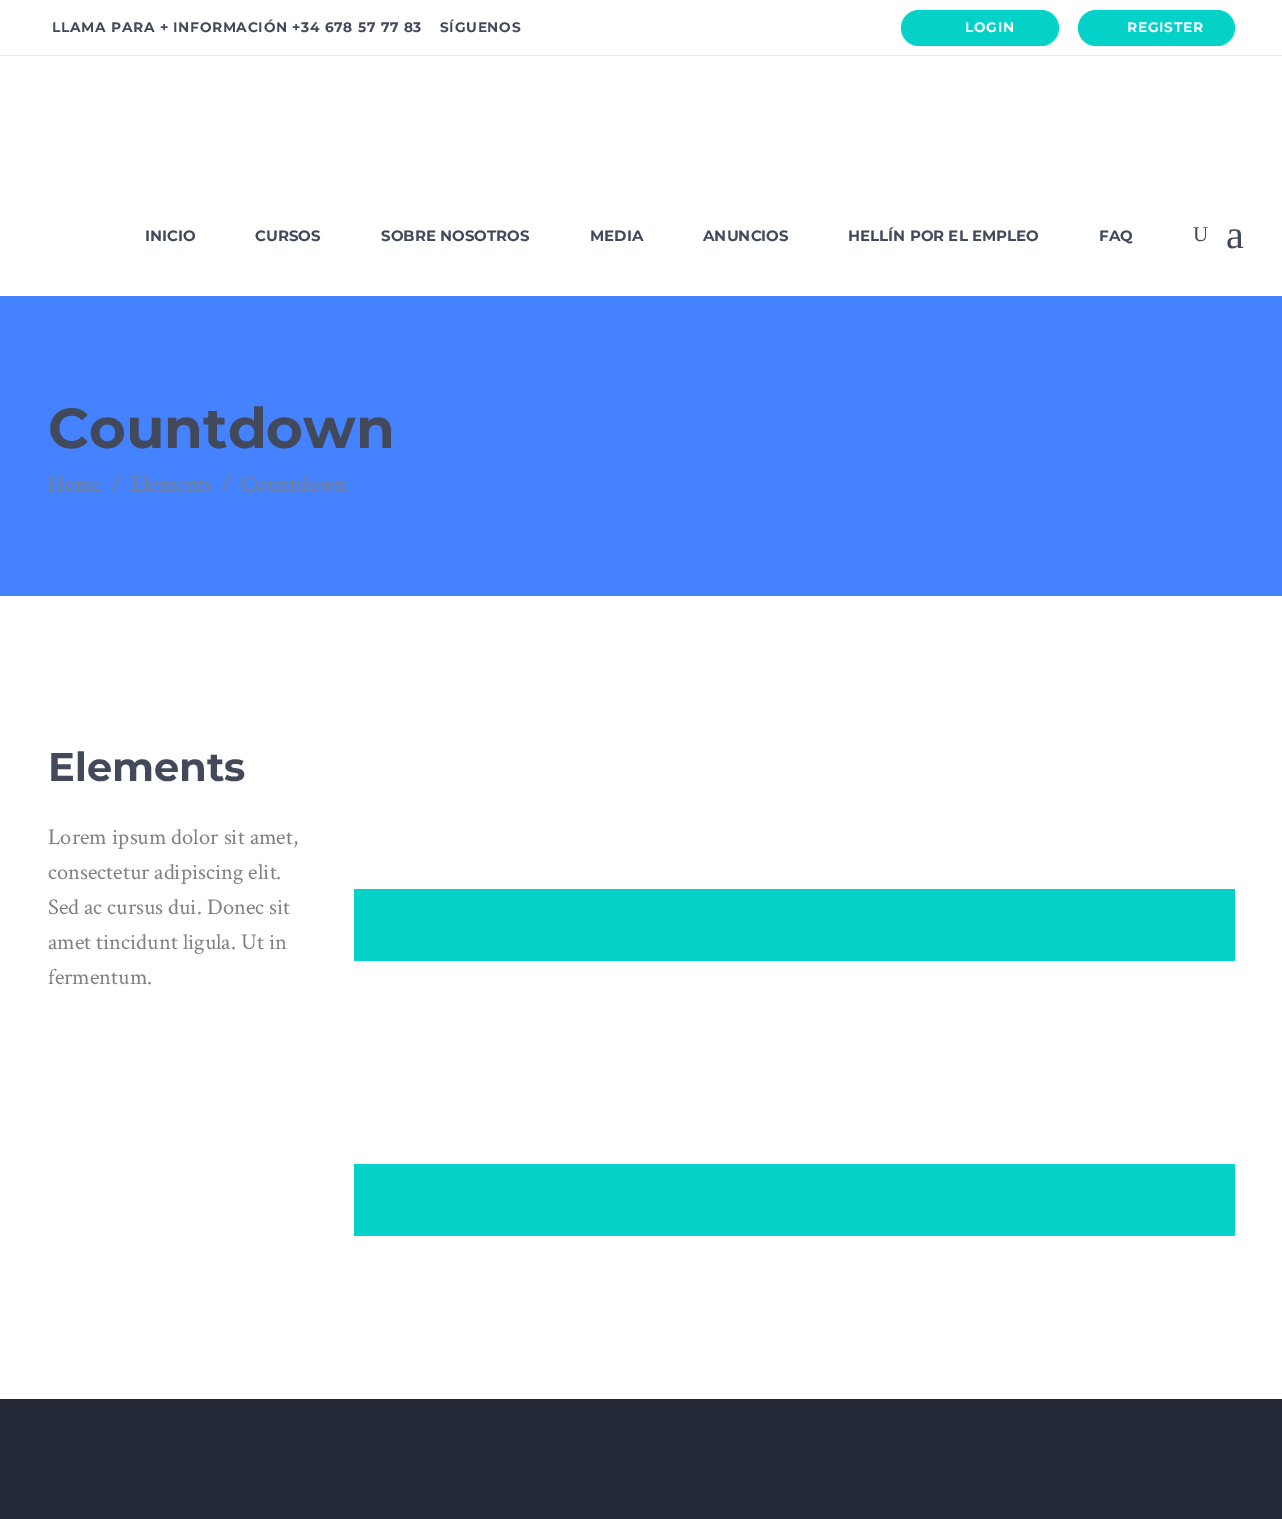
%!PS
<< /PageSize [1282 1519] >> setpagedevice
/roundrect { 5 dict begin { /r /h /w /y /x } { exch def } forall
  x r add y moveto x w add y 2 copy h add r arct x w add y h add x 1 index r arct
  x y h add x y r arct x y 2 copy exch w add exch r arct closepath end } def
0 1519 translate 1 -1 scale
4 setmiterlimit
1 setgray
0 0 1282 1519 rectfill
0.922 setgray
0 55 1282 1 rectfill
/Montserrat-Bold [13.75 0 0 -13.75 0 0] selectfont
0.259 0.286 0.357 setrgbcolor
52 32 moveto 0.7 0 (LLAMA PARA + INFORMACIÓN +34 678 57 77 83) ashow
440 32 moveto 0.7 0 (SÍGUENOS) ashow
0.016 0.824 0.784 setrgbcolor
901 10 158 36 18 roundrect fill
1 setgray
965 32 moveto 0.7 0 (LOGIN) ashow
0.016 0.824 0.784 setrgbcolor
1078 10 157 36 18 roundrect fill
1 setgray
1127 32 moveto 0.7 0 (REGISTER) ashow
/Montserrat-Bold [15 0 0 -15 0 0] selectfont
0.259 0.286 0.357 setrgbcolor
145 241 moveto (INICIO) show
255 241 moveto (CURSOS) show
381 241 moveto (SOBRE NOSOTROS) show
590 241 moveto (MEDIA) show
703 241 moveto (ANUNCIOS) show
848 241 moveto (HELLÍN POR EL EMPLEO) show
1099 241 moveto (FAQ) show
/LiberationSerif-Regular [21 0 0 -21 0 0] selectfont
1193 241 moveto (U) show
/LiberationSerif-Regular [40 0 0 -40 0 0] selectfont
1226 248 moveto (a) show
0.271 0.51 1 setrgbcolor
0 296 1282 300 rectfill
/Montserrat-Bold [56.25 0 0 -56.25 0 0] selectfont
0.259 0.286 0.357 setrgbcolor
48 448 moveto (Countdown) show
/CrimsonText-Regular [22.5 0 0 -22.5 0 0] selectfont
0.502 setgray
48 491 moveto (Home) show
111 491 moveto (/) show
131 491 moveto (Elements) show
222 491 moveto (/) show
241 491 moveto (Countdown) show
/Montserrat-Bold [40 0 0 -40 0 0] selectfont
0.259 0.286 0.357 setrgbcolor
48 781 moveto (Elements) show
/CrimsonText-Regular [22.5 0 0 -22.5 0 0] selectfont
0.502 setgray
48 844 moveto (Lorem ipsum dolor sit amet,) show
48 879 moveto (consectetur adipiscing elit.) show
48 914 moveto (Sed ac cursus dui. Donec sit) show
48 949 moveto (amet tincidunt ligula. Ut in) show
48 984 moveto (fermentum.) show
0.016 0.824 0.784 setrgbcolor
354 889 881 72 rectfill
354 1164 881 72 rectfill
0.137 0.161 0.212 setrgbcolor
0 1399 1282 120 rectfill
showpage
